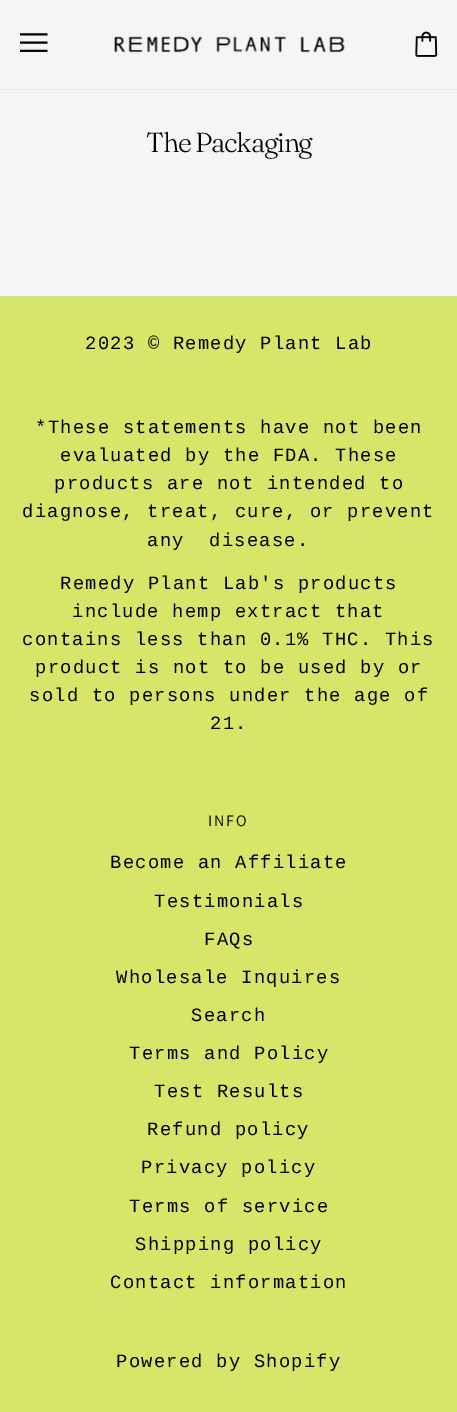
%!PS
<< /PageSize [457 1412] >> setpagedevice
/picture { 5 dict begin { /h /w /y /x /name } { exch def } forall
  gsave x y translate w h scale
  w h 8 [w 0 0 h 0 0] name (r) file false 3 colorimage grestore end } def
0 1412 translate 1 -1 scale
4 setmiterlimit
0.961 setgray
0 0 457 1412 rectfill
0.918 setgray
0 89 457 1 rectfill
(img1.rgb) 20 33 28 19 picture
(img2.rgb) 114 36 231 17 picture
(img3.rgb) 415 31 23 26 picture
/Fraunces-Light [27.5 0 0 -27.5 0 0] selectfont
0 setgray
146 152 moveto -1.25 0 (The Packaging) ashow
0.839 0.902 0.412 setrgbcolor
0 296 457 1116 rectfill
/LiberationMono-Regular [18.75 0 0 -18.75 0 0] selectfont
0 setgray
85 349 moveto 1.25 0 (2023 © Remedy Plant Lab) ashow
35 433 moveto 1.25 0 (*These statements have not been) ashow
60 461 moveto 1.25 0 (evaluated by the FDA. These) ashow
54 489 moveto 1.25 0 (products are not intended to) ashow
22 517 moveto 1.25 0 (diagnose, treat, cure, or prevent) ashow
147 546 moveto 12 0 32 1.25 0 (any disease.) awidthshow
60 589 moveto 1.25 0 (Remedy Plant Lab's products) ashow
72 617 moveto 1.25 0 (include hemp extract that) ashow
22 645 moveto 1.25 0 (contains less than 0.1% THC. This) ashow
35 673 moveto 1.25 0 (product is not to be used by or) ashow
29 701 moveto 1.25 0 (sold to persons under the age of) ashow
210 729 moveto 1.25 0 (21.) ashow
/Assistant-Regular [16 0 0 -16 0 0] selectfont
208 826 moveto 2 0 (INFO) ashow
/LiberationMono-Regular [18.75 0 0 -18.75 0 0] selectfont
110 868 moveto 1.25 0 (Become an Affiliate) ashow
154 907 moveto 1.25 0 (Testimonials) ashow
204 945 moveto 1.25 0 (FAQs) ashow
116 983 moveto 1.25 0 (Wholesale Inquires) ashow
191 1021 moveto 1.25 0 (Search) ashow
129 1059 moveto 1.25 0 (Terms and Policy) ashow
154 1097 moveto 1.25 0 (Test Results) ashow
147 1135 moveto 1.25 0 (Refund policy) ashow
141 1173 moveto 1.25 0 (Privacy policy) ashow
129 1212 moveto 1.25 0 (Terms of service) ashow
135 1250 moveto 1.25 0 (Shipping policy) ashow
110 1288 moveto 1.25 0 (Contact information) ashow
116 1367 moveto 1.25 0 (Powered by Shopify) ashow
showpage
